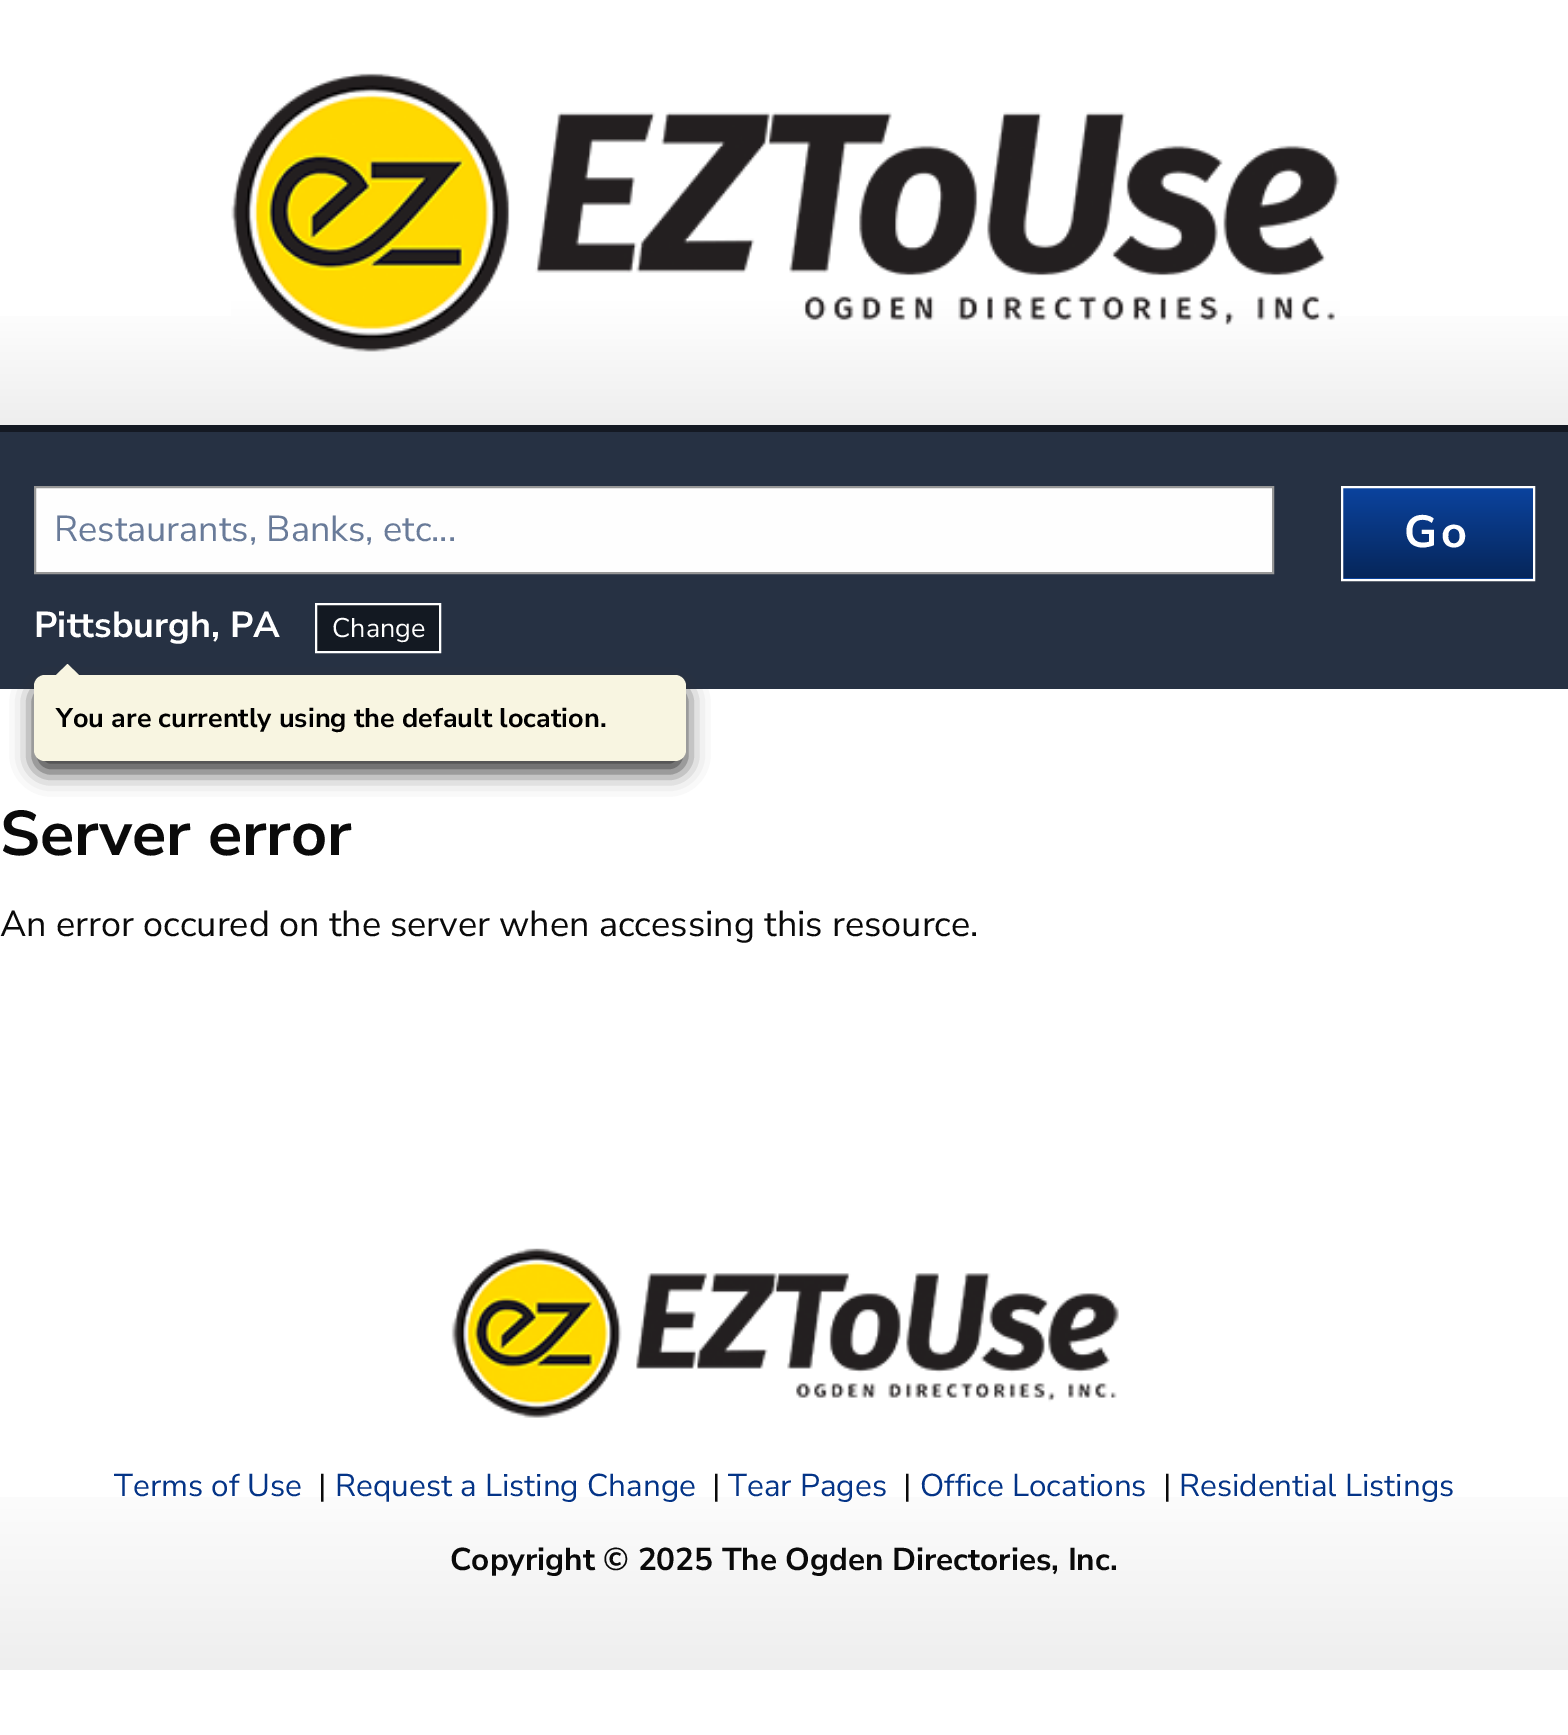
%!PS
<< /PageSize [1568 1735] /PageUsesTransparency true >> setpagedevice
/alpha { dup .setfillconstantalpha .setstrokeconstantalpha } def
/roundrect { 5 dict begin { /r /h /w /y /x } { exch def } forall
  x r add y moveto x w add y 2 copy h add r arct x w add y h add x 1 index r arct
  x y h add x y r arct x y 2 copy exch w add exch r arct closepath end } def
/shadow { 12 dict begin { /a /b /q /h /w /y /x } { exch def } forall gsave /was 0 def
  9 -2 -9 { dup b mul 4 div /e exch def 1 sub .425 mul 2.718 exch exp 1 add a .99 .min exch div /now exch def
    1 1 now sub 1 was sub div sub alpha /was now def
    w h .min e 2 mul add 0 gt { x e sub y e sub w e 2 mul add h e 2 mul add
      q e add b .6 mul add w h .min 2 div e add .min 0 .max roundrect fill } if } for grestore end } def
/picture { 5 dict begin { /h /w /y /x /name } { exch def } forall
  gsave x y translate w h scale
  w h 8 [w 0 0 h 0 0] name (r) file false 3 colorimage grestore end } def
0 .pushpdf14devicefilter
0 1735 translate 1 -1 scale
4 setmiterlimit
1 setgray
0 0 1568 1735 rectfill
gsave newpath 0 316 moveto 1568 316 lineto 1568 425 lineto 0 425 lineto closepath clip newpath
<< /ShadingType 2 /ColorSpace /DeviceRGB /Coords [784 0 784 425] /Extend [true true] /Function << /FunctionType 3 /Domain [0 1] /Functions [<< /FunctionType 2 /Domain [0 1] /C0 [1 1 1] /C1 [1 1 1] /N 1 >> << /FunctionType 2 /Domain [0 1] /C0 [1 1 1] /C1 [0.933 0.933 0.933] /N 1 >>] /Bounds [0.7] /Encode [0 1 0 1] >> >> shfill grestore
(img1.rgb) 231 73 1109 279 picture
0.149 0.192 0.263 setrgbcolor
0 432 1568 257 rectfill
0.078 0.098 0.137 setrgbcolor
0 425 1568 7 rectfill
0.996 setgray
newpath 35 487 moveto 1273 487 lineto 1273 573 lineto 35 573 lineto closepath gsave fill grestore
0.592 setgray
2 setlinewidth
stroke
/NunitoSans-Regular [36 0 0 -36 0 0] selectfont
0.412 0.482 0.6 setrgbcolor
54 541 moveto (Restaurants, Banks, etc...) show
gsave newpath 1343 488 moveto 1533 488 lineto 1533 578 lineto 1343 578 lineto closepath clip newpath
<< /ShadingType 2 /ColorSpace /DeviceRGB /Coords [1438 488 1438 578] /Extend [true true] /Function << /FunctionType 2 /Domain [0 1] /C0 [0.043 0.263 0.62] /C1 [0.024 0.149 0.353] /N 1 >> >> shfill grestore
gsave newpath 1341 578 moveto 1535 578 lineto 1535 579 lineto 1341 579 lineto closepath clip newpath
<< /ShadingType 2 /ColorSpace /DeviceRGB /Coords [1438 578 1438 668] /Extend [true true] /Function << /FunctionType 2 /Domain [0 1] /C0 [0.043 0.263 0.62] /C1 [0.024 0.149 0.353] /N 1 >> >> shfill grestore
1 setgray
1342 487 192 93 rectstroke
/NunitoSans-Bold [45 0 0 -45 0 0] selectfont
1404 547 moveto 4 0 (Go) ashow
/NunitoSans-Bold [36 0 0 -36 0 0] selectfont
34 637 moveto (Pittsburgh, PA) show
0.075 0.098 0.133 setrgbcolor
newpath 316 604 moveto 440 604 lineto 440 652 lineto 316 652 lineto closepath gsave fill grestore
1 setgray
stroke
/NunitoSans-Regular [27 0 0 -27 0 0] selectfont
332 637 moveto (Change) show
0.204 setgray
34 686 652 86 11 11 1 shadow
0.973 0.961 0.882 setrgbcolor
34 675 652 86 11 roundrect fill
newpath 79 675 moveto 56 675 lineto 67.5 664 lineto closepath fill
/NunitoSans-Bold [27 0 0 -27 0 0] selectfont
0 setgray
56 727 moveto (You are currently using the default location.) show
/NunitoSans-Bold [63 0 0 -63 0 0] selectfont
0.039 setgray
0 855 moveto (Server error) show
/NunitoSans-Regular [36 0 0 -36 0 0] selectfont
0 936 moveto (An error occured on the server when accessing this resource.) show
gsave newpath 0 1497 moveto 1568 1497 lineto 1568 1670 lineto 0 1670 lineto closepath clip newpath
<< /ShadingType 2 /ColorSpace /DeviceRGB /Coords [784 1163 784 1670] /Extend [true true] /Function << /FunctionType 3 /Domain [0 1] /Functions [<< /FunctionType 2 /Domain [0 1] /C0 [1 1 1] /C1 [1 1 1] /N 1 >> << /FunctionType 2 /Domain [0 1] /C0 [1 1 1] /C1 [0.933 0.933 0.933] /N 1 >>] /Bounds [0.6] /Encode [0 1 0 1] >> >> shfill grestore
(img2.rgb) 451 1248 668 170 picture
/NunitoSans-Regular [31.5 0 0 -31.5 0 0] selectfont
0.016 0.204 0.529 setrgbcolor
114 1496 moveto (Terms of Use) show
0.039 setgray
318 1496 moveto (|) show
0.016 0.204 0.529 setrgbcolor
335 1496 moveto (Request a Listing Change) show
0.039 setgray
712 1496 moveto (|) show
0.016 0.204 0.529 setrgbcolor
728 1496 moveto (Tear Pages) show
0.039 setgray
903 1496 moveto (|) show
0.016 0.204 0.529 setrgbcolor
920 1496 moveto (Office Locations) show
0.039 setgray
1163 1496 moveto (|) show
0.016 0.204 0.529 setrgbcolor
1179 1496 moveto (Residential Listings) show
/NunitoSans-Bold [31.5 0 0 -31.5 0 0] selectfont
0.039 setgray
450 1570 moveto (Copyright © 2025 The Ogden Directories, Inc.) show
.poppdf14devicefilter showpage
